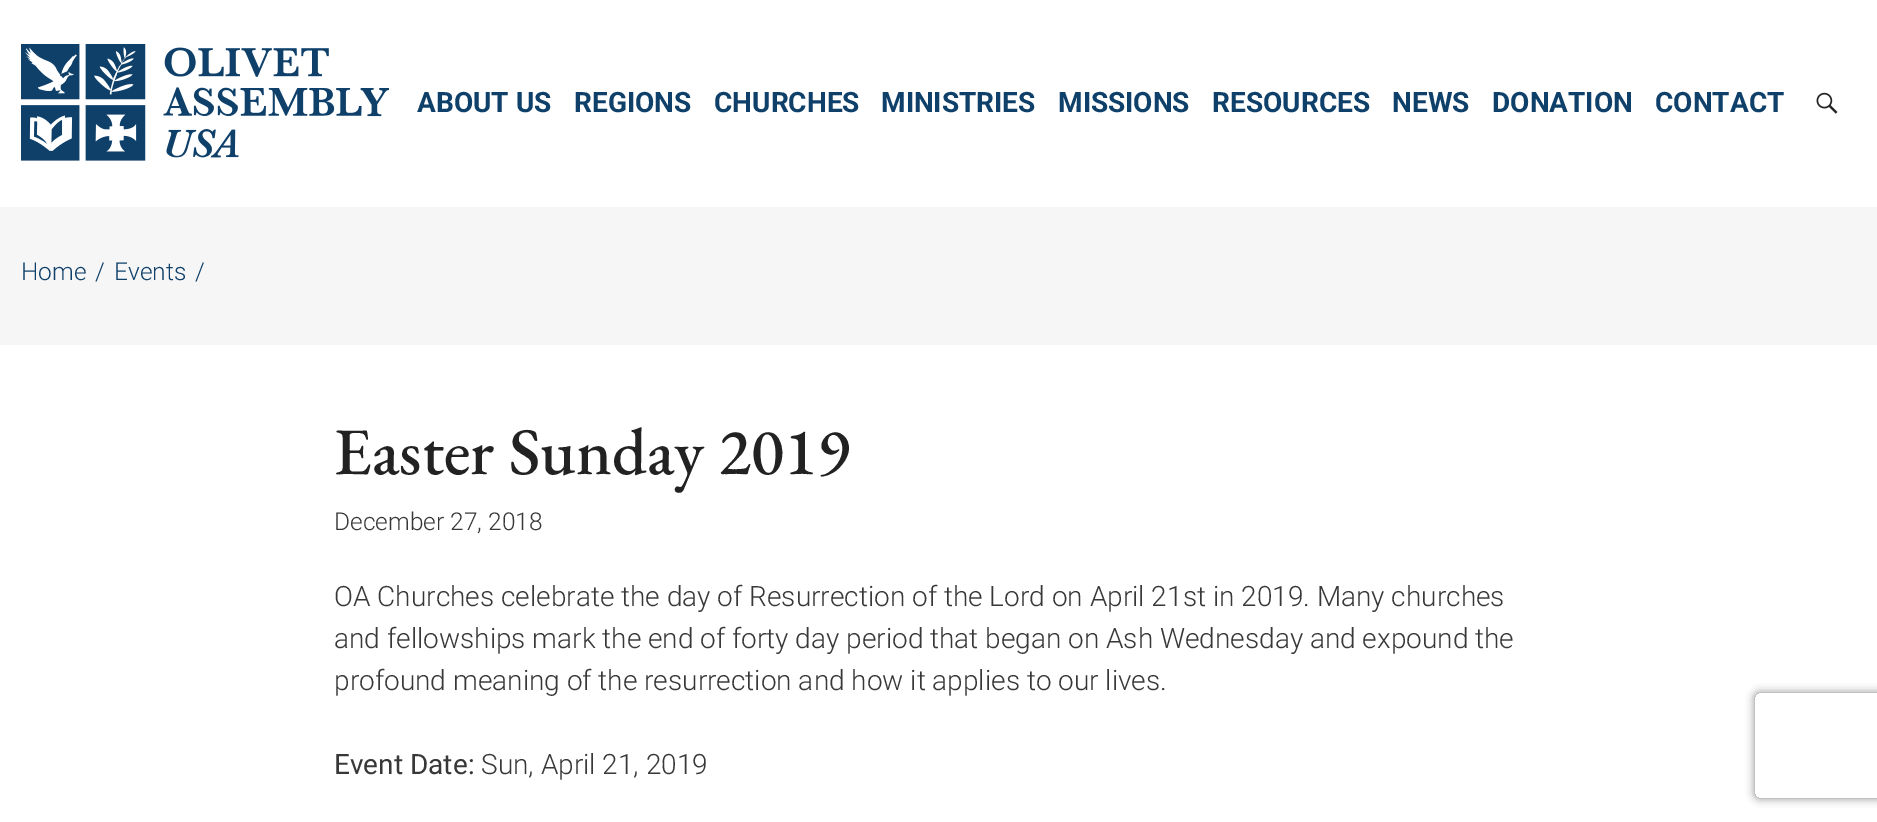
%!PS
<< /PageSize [1877 822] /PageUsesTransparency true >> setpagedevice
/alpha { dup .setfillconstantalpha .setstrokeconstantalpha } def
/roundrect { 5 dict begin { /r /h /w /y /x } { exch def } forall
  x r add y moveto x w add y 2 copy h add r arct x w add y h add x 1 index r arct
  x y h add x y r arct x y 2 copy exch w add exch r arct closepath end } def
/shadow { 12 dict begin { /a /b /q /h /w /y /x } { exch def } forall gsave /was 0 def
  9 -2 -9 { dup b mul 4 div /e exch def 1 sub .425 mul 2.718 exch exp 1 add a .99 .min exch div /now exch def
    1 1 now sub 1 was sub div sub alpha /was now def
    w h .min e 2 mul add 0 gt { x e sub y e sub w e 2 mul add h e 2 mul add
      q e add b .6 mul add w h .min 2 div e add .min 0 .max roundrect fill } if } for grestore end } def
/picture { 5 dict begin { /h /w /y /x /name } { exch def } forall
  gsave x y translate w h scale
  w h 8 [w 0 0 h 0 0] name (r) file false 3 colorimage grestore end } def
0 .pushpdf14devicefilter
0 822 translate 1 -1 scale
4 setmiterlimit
1 setgray
0 0 1877 822 rectfill
(img1.rgb) 21 44 368 117 picture
/Roboto-Bold [28 0 0 -28 0 0] selectfont
0.055 0.251 0.416 setrgbcolor
417 112 moveto (ABOUT US) show
574 112 moveto (REGIONS) show
714 112 moveto (CHURCHES) show
881 112 moveto (MINISTRIES) show
1058 112 moveto (MISSIONS) show
1212 112 moveto (RESOURCES) show
1392 112 moveto (NEWS) show
1492 112 moveto (DONATION) show
1655 112 moveto (CONTACT) show
(img2.rgb) 1816 92 22 22 picture
0.965 setgray
0 207 1877 138 rectfill
/Roboto-Light [24.5 0 0 -24.5 0 0] selectfont
0.055 0.251 0.416 setrgbcolor
21 280 moveto (Home) show
95 280 moveto (/) show
114 280 moveto (Events) show
195 280 moveto (/) show
/EBGaramond-Medium [66.5 0 0 -66.5 0 0] selectfont
0.133 setgray
334 474 moveto (Easter Sunday 2019) show
/Roboto-Light [24.5 0 0 -24.5 0 0] selectfont
0.22 setgray
334 530 moveto (December 27, 2018) show
/Roboto-Light [28 0 0 -28 0 0] selectfont
334 606 moveto (OA Churches celebrate the day of Resurrection of the Lord on April 21st in 2019. Many churches) show
334 648 moveto (and fellowships mark the end of forty day period that began on Ash Wednesday and expound the) show
334 690 moveto (profound meaning of the resurrection and how it applies to our lives.) show
/Roboto-Regular [28 0 0 -28 0 0] selectfont
334 774 moveto (Event Date:) show
/Roboto-Light [28 0 0 -28 0 0] selectfont
481 774 moveto (Sun, April 21, 2019) show
gsave
newpath 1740 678 moveto 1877 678 lineto 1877 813 lineto 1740 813 lineto closepath 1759 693 moveto 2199 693 lineto 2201 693 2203 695 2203 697 curveto 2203 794 lineto 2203 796 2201 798 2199 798 curveto 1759 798 lineto 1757 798 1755 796 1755 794 curveto 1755 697 lineto 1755 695 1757 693 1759 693 curveto closepath eoclip newpath
0.502 setgray
1755 693 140 105 4 4.5 1 shadow
grestore
.poppdf14devicefilter showpage
